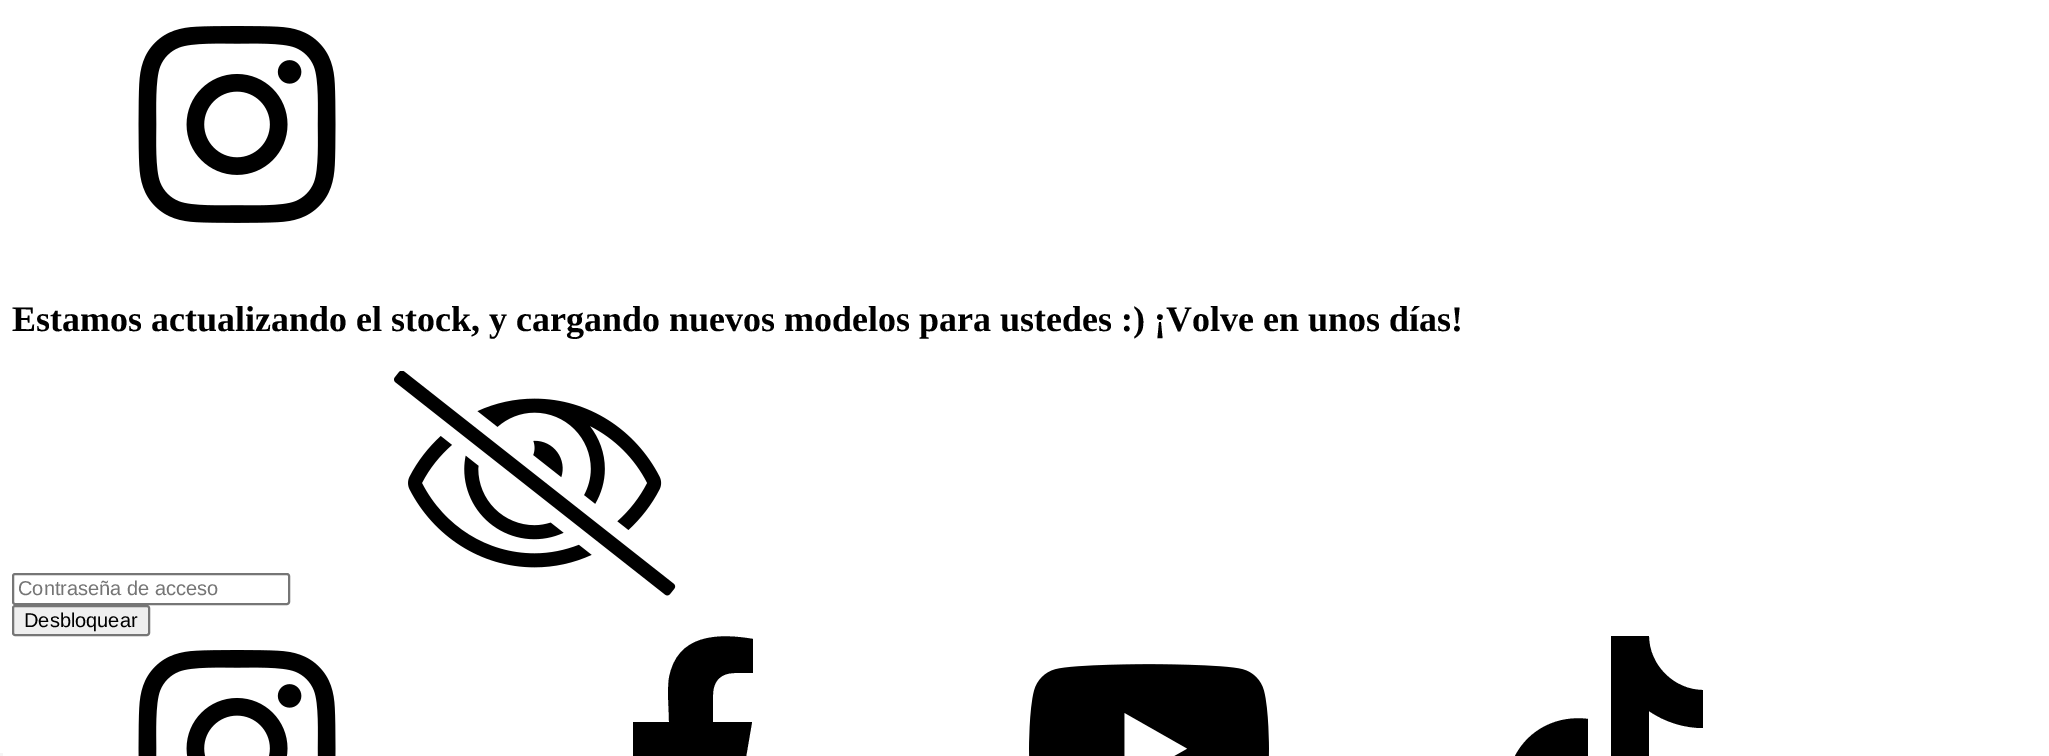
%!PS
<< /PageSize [2049 756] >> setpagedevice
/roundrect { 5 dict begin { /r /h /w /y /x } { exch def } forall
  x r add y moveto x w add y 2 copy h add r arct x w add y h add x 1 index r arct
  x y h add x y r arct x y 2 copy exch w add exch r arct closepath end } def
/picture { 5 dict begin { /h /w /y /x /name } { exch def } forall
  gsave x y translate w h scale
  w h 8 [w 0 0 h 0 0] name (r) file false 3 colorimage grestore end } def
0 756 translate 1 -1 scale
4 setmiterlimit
1 setgray
0 0 2049 756 rectfill
(img1.rgb) 138 26 198 197 picture
/LiberationSerif-Bold [36 0 0 -36 0 0] selectfont
0 setgray
12 331 moveto (Estamos actualizando el stock, y cargando nuevos modelos para ustedes :\) ¡Volve en unos días!) show
0.463 setgray
2 setlinewidth
13 574 276 30 2 roundrect stroke
/LiberationSans-Regular [20 0 0 -20 0 0] selectfont
0.459 setgray
18 595 moveto (Contraseña de acceso) show
(img2.rgb) 394 371 282 225 picture
0.937 setgray
13 606 136 29 2 roundrect gsave fill grestore
0.463 setgray
stroke
0 setgray
24 627 moveto (Desbloquear) show
0.961 setgray
0 753 3 3 rectfill
(img3.rgb) 138 650 198 106 picture
0 setgray
newpath 745 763 moveto 752 722 lineto 713 722 lineto 713 695 lineto 713 684 718 673 735 673 curveto 753 673 lineto 753 639 lineto 718 633 677 634 669 678 curveto 667 692 669 708 669 722 curveto 633 722 lineto 633 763 lineto 669 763 lineto 669 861 lineto 713 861 lineto 713 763 lineto closepath fill
(img4.rgb) 1029 664 240 92 picture
newpath 1703 728 moveto 1684 728 1665 722 1649 711 curveto 1649 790 lineto 1649 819 1631 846 1603 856 curveto 1575 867 1544 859 1524 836 curveto 1505 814 1501 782 1515 756 curveto 1529 729 1558 715 1588 719 curveto 1588 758 lineto 1574 754 1560 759 1551 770 curveto 1543 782 1543 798 1552 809 curveto 1560 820 1575 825 1588 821 curveto 1602 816 1611 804 1611 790 curveto 1611 636 lineto 1649 636 lineto 1649 665 1674 690 1703 690 curveto closepath fill
showpage
